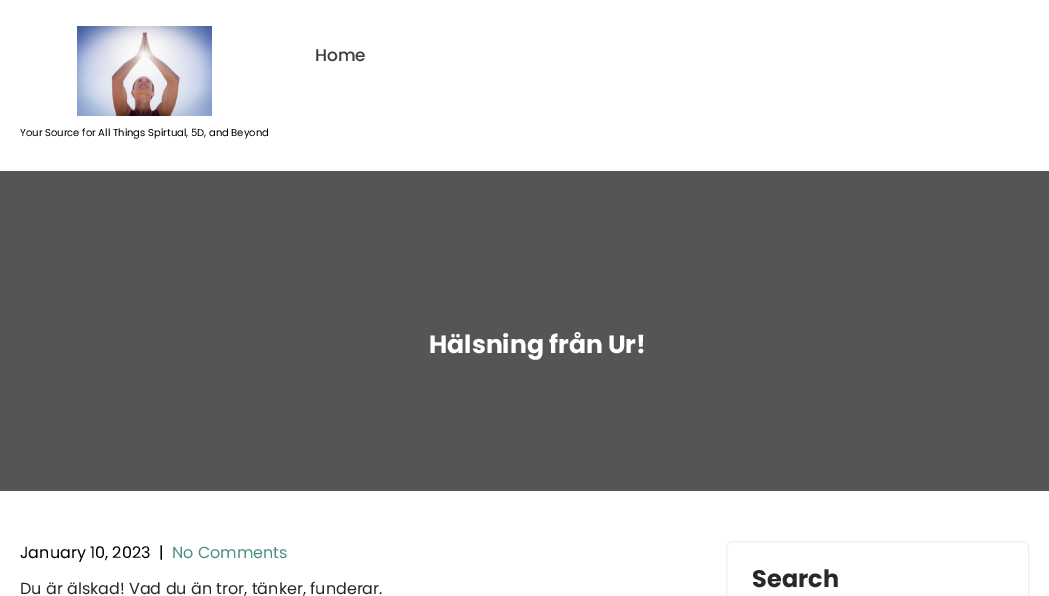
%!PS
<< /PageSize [1049 596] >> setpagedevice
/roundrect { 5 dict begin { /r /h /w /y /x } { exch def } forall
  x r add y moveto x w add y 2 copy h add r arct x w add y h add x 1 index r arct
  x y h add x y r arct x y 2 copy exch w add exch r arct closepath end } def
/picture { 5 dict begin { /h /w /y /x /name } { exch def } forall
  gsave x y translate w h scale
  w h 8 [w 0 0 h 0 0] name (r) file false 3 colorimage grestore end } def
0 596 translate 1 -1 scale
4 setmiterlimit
1 setgray
0 0 1049 596 rectfill
/Poppins-Medium [17 0 0 -17 0 0] selectfont
0.235 setgray
315 61 moveto (Home) show
(img1.rgb) 77 26 135 90 picture
/Poppins-Regular [10 0 0 -10 0 0] selectfont
0 setgray
20 136 moveto (Your Source for All Things Spirtual, 5D, and Beyond) show
0.329 0.333 0.337 setrgbcolor
0 171 1049 320 rectfill
/Poppins-Bold [25 0 0 -25 0 0] selectfont
1 setgray
429 353 moveto (Hälsning från Ur!) show
/Poppins-Regular [16 0 0 -16 0 0] selectfont
0 setgray
20 558 moveto (January 10, 2023) show
159 558 moveto (|) show
0.302 0.561 0.518 setrgbcolor
172 558 moveto (No Comments) show
0.161 setgray
20 594 moveto (Du är älskad! Vad du än tror, tänker, funderar.) show
0.933 0.937 0.961 setrgbcolor
726.5 541.5 302 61 5.5 roundrect stroke
/Poppins-Bold [24 0 0 -24 0 0] selectfont
0.161 setgray
752 587 moveto (Search) show
showpage
